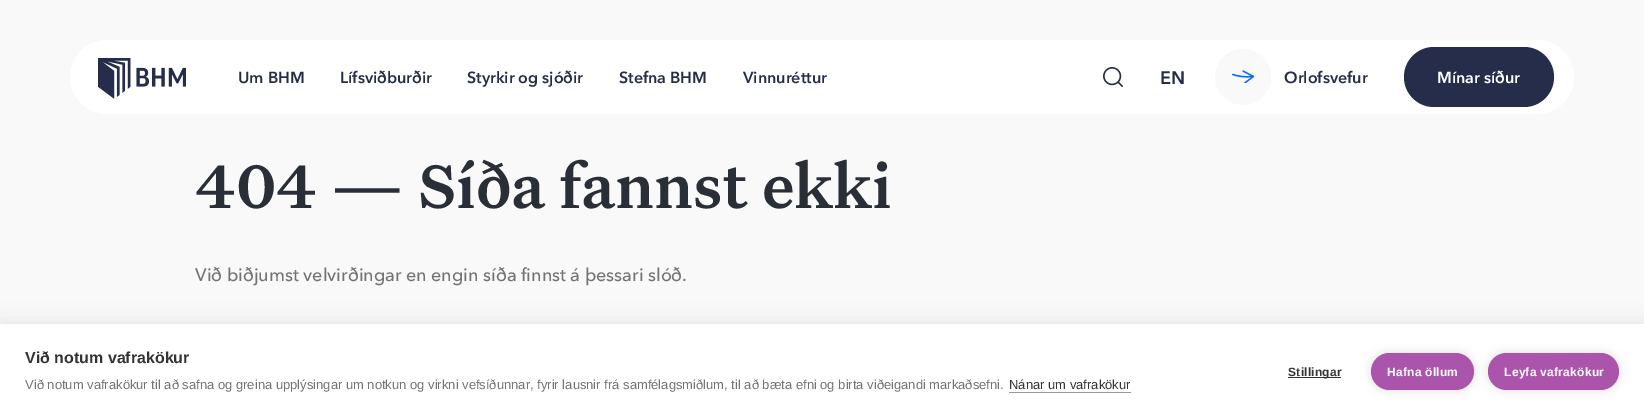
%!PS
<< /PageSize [1644 419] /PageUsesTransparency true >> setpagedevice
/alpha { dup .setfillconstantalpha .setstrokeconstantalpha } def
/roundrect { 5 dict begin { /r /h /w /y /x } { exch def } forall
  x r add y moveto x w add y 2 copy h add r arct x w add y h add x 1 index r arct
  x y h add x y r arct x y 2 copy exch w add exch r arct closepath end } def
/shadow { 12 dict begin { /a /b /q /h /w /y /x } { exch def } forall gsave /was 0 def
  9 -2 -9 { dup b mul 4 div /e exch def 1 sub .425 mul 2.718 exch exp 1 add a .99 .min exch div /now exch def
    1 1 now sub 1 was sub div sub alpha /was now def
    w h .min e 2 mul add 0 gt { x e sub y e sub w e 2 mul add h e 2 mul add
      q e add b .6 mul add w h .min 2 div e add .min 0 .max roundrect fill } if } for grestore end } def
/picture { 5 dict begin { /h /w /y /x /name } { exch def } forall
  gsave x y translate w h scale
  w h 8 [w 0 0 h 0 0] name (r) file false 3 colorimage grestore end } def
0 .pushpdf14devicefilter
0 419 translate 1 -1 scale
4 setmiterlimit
0.976 setgray
0 0 1644 419 rectfill
1 setgray
70 40 1504 74 37 roundrect fill
(img1.rgb) 98 58 88 41 picture
/Avenir-Bold [16 0 0 -16 0 0] selectfont
0.145 0.176 0.294 setrgbcolor
238 83 moveto (Um BHM) show
340 83 moveto (Lífsviðburðir) show
467 83 moveto (Styrkir og sjóðir) show
619 83 moveto (Stefna BHM) show
743 83 moveto (Vinnuréttur) show
(img2.rgb) 1103 67 20 20 picture
/Avenir-Bold [18 0 0 -18 0 0] selectfont
1160 84 moveto (EN) show
0.976 setgray
newpath 1243 77 28 0 360 arc closepath fill
(img3.rgb) 1232 70 22 13 picture
/Avenir-Bold [16 0 0 -16 0 0] selectfont
0.145 0.176 0.294 setrgbcolor
1284 83 moveto (Orlofsvefur) show
1404 47 150 60 30 roundrect fill
1 setgray
1437 83 moveto (Mínar síður) show
/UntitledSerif-Medium [66 0 0 -66 0 0] selectfont
0.165 0.184 0.216 setrgbcolor
195 208 moveto (404 — Síða fannst ekki) show
/Avenir-Medium [18 0 0 -18 0 0] selectfont
0.451 setgray
195 281 moveto (Við biðjumst velvirðingar en engin síða finnst á þessari slóð.) show
0 setgray
0 324 1644 95 0 10 0.1 shadow
1 setgray
0 324 1644 95 rectfill
/LiberationSans-Bold [16 0 0 -16 0 0] selectfont
0.2 setgray
25 363 moveto (Við notum vafrakökur) show
/LiberationSans-Regular [13 0 0 -13 0 0] selectfont
0.451 setgray
25 389 moveto (Við notum vafrakökur til að safna og greina upplýsingar um notkun og virkni vefsíðunnar, fyrir lausnir frá samfélagsmiðlum, til að bæta efni og birta viðeigandi markaðsefni.) show
0.2 setgray
1009 389 moveto (Nánar um vafrakökur) show
0.6 setgray
1009 392 122 1 rectfill
0.2 setgray
1288 377 53 1 rectfill
/LiberationSans-Bold [12 0 0 -12 0 0] selectfont
1288 376 moveto 0.25 0 (Stillingar) ashow
0 setgray
1371 353 103 37 18.5 5 0.12 shadow
0.671 0.329 0.671 setrgbcolor
1371 353 103 37 18.5 roundrect fill
1 setgray
1387 376 moveto 0.25 0 (Hafna öllum) ashow
0 setgray
1488 353 131 37 18.5 5 0.12 shadow
0.671 0.329 0.671 setrgbcolor
1488 353 131 37 18.5 roundrect fill
1 setgray
1504 376 moveto 0.25 0 (Leyfa vafrakökur) ashow
.poppdf14devicefilter showpage
